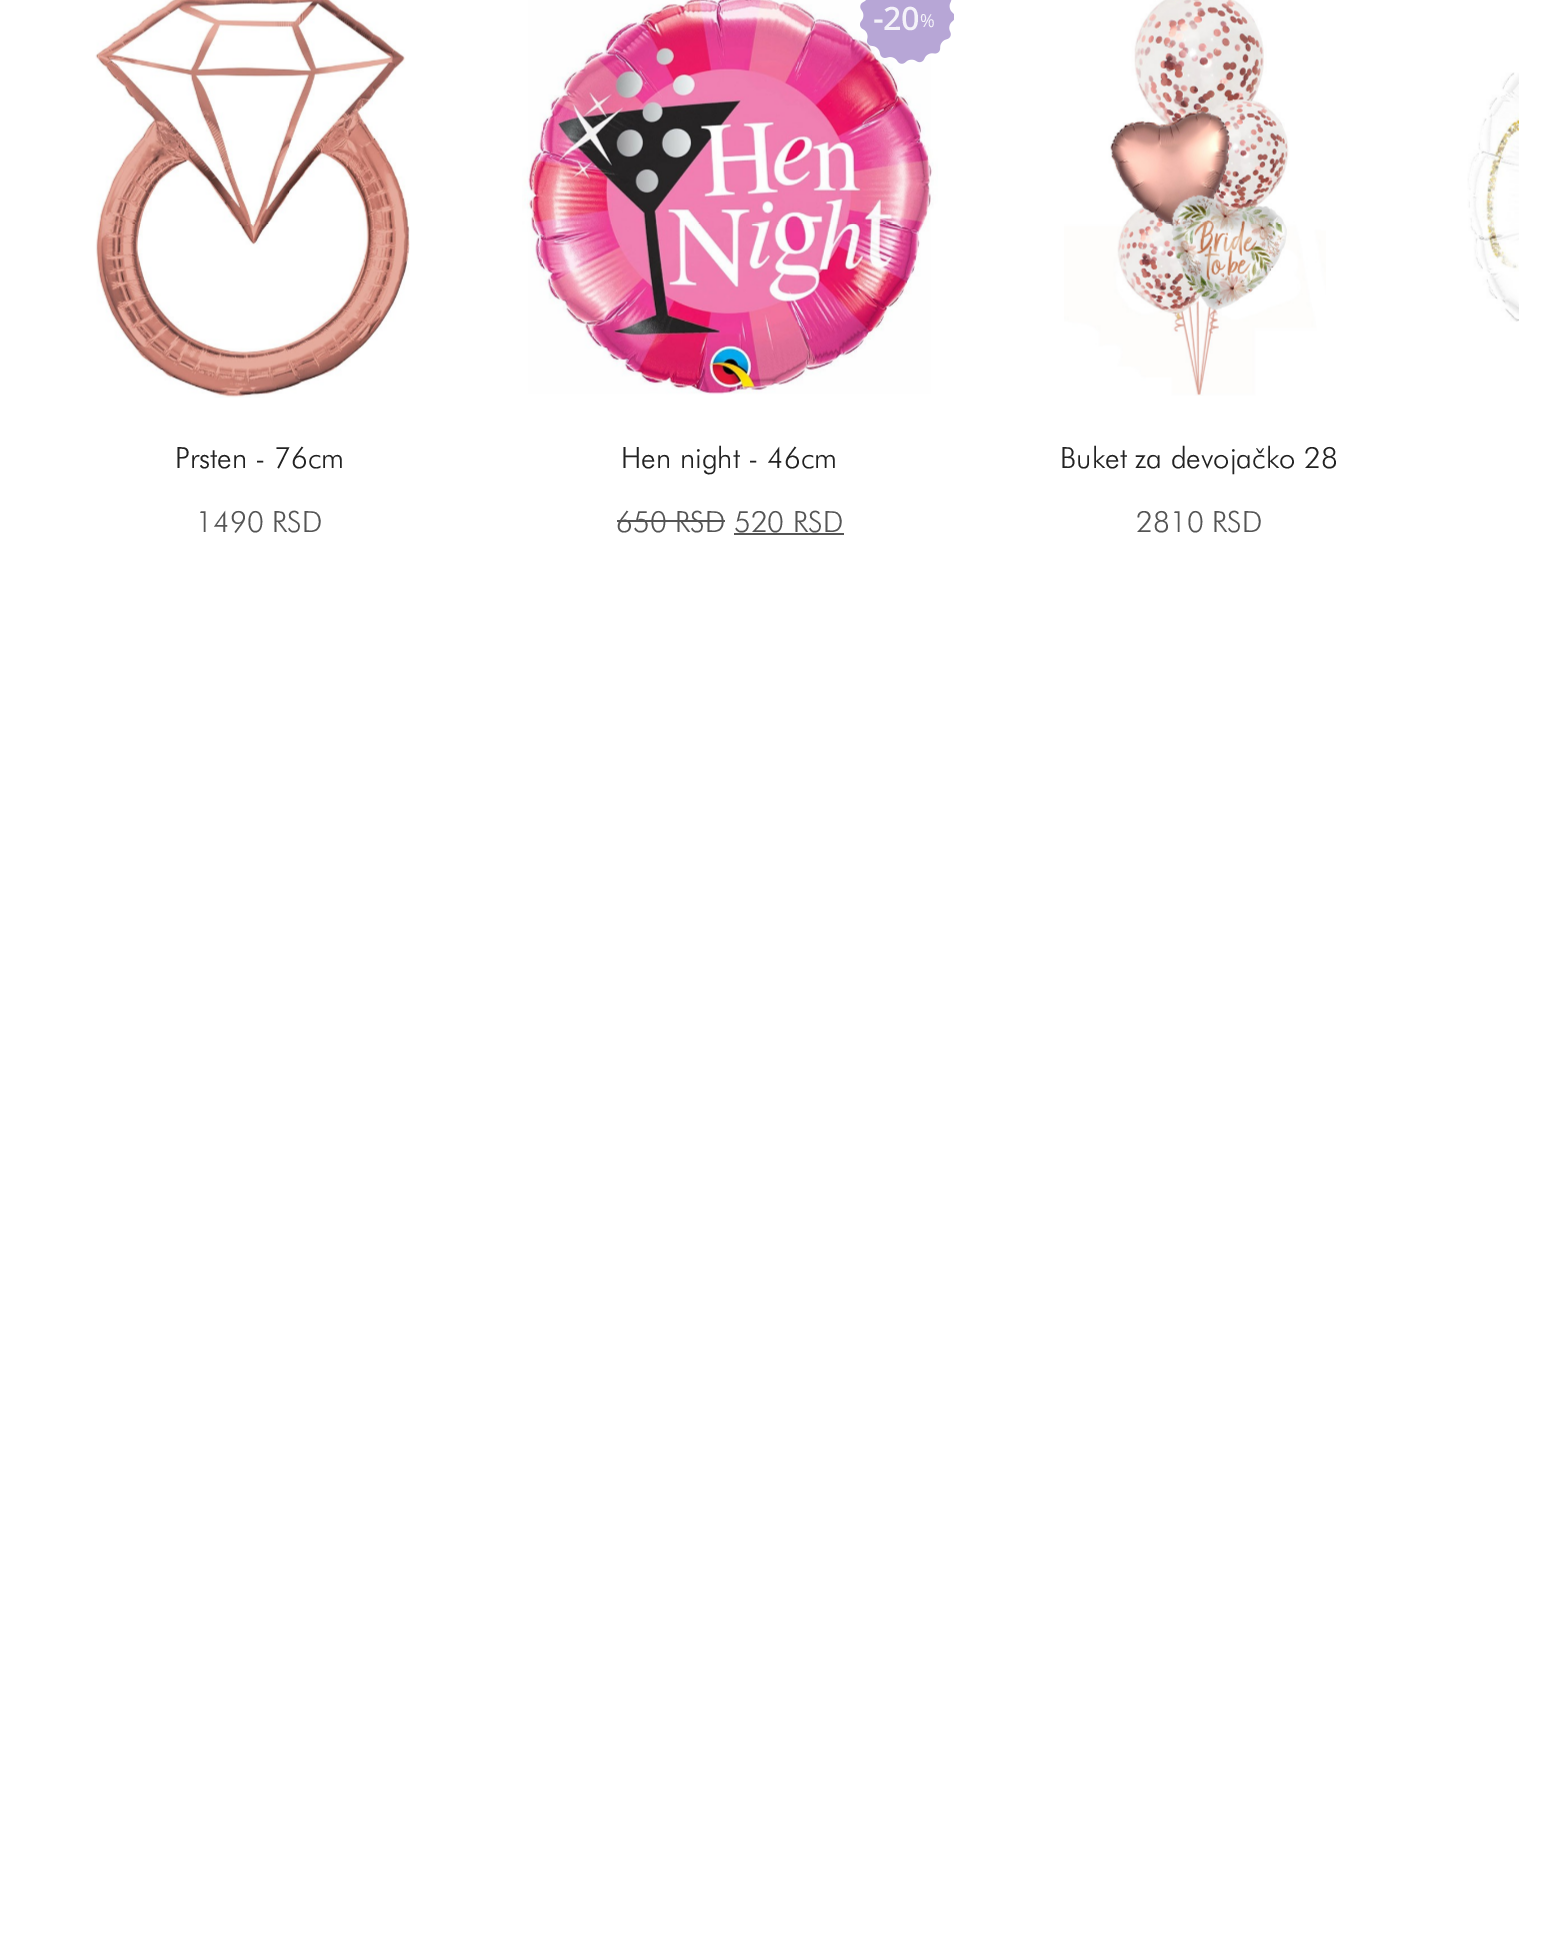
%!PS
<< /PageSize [1551 1954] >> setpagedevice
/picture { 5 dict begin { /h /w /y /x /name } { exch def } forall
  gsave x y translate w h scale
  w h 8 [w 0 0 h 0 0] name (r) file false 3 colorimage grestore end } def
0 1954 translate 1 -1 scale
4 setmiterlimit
1 setgray
0 0 1551 1954 rectfill
(img1.rgb) 522 0 416 395 picture
(img2.rgb) 860 0 94 64 picture
/OpenSans-Bold [31 0 0 -31 0 0] selectfont
0.957 0.949 0.976 setrgbcolor
873 30 moveto (-20) show
/OpenSans-Regular [18 0 0 -18 0 0] selectfont
920 27 moveto (%) show
/Futura-Light [29.25 0 0 -29.25 0 0] selectfont
0.133 setgray
621 468 moveto (Hen night - 46cm) show
0.333 setgray
616 532 moveto (650 RSD 520 RSD) show
617 520 108 2 rectfill
734 533 110 2 rectfill
(img3.rgb) 1467 72 52 250 picture
(img4.rgb) 95 0 315 398 picture
0.133 setgray
175 468 moveto (Prsten - 76cm) show
0.333 setgray
196 532 moveto (1490 RSD) show
(img5.rgb) 1064 0 262 396 picture
0.133 setgray
1060 468 moveto (Buket za devojačko 28) show
0.333 setgray
1136 532 moveto (2810 RSD) show
showpage
